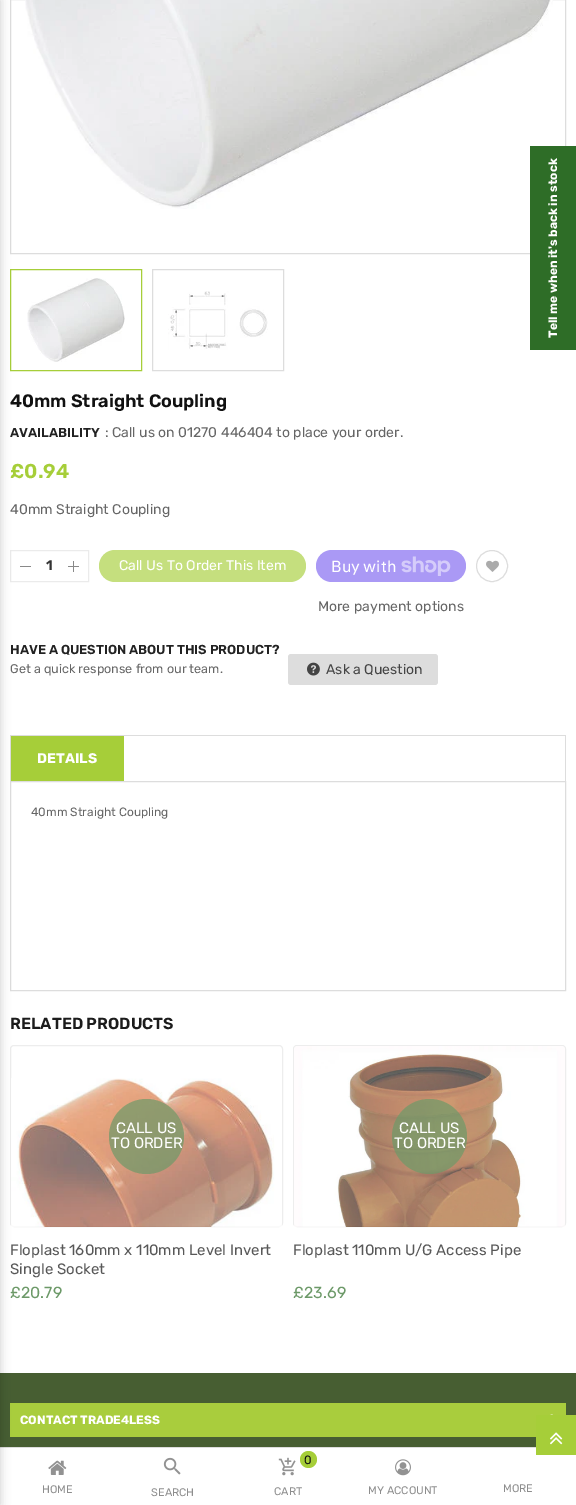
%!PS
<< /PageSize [576 1505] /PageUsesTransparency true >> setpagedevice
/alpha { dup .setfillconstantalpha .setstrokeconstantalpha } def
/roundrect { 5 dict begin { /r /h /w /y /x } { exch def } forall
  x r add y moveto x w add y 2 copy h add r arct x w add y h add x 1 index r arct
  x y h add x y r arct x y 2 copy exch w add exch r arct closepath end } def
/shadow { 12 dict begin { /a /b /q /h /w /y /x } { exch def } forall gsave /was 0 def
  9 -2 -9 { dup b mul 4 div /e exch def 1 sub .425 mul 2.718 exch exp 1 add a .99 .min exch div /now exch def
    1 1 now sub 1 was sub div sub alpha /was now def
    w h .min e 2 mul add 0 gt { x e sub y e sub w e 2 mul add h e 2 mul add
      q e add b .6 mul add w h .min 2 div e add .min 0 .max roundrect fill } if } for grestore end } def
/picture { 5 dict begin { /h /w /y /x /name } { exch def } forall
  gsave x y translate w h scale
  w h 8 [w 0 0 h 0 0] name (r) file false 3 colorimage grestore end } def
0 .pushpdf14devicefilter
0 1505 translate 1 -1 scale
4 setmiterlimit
1 setgray
0 0 576 1505 rectfill
0.867 setgray
10.5 -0.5 555 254 rectstroke
(img1.rgb) 25 0 528 209 picture
0.18 0.427 0.153 setrgbcolor
530 146 46 204 rectfill
/Rubik-Bold [12 0 0 -12 0 0] selectfont
1 setgray
gsave 557 338 translate -90 rotate 0 0 moveto (Tell me when it's back in stock) show grestore
0.651 0.808 0.224 setrgbcolor
10.5 269.5 131 101 rectstroke
0.922 setgray
10.5 550.5 78 31 rectstroke
0.867 setgray
10 735 556 1 rectfill
10 735 1 46 rectfill
0.651 0.808 0.224 setrgbcolor
11 736 113 45 rectfill
0.867 setgray
10.5 781.5 555 209 rectstroke
0.929 setgray
10.5 1045.5 272 181 3.5 roundrect stroke
(img8.rgb) 11 1078 271 149 picture
0.278 0.369 0.196 setrgbcolor
0 1373 576 74 rectfill
0.663 0.804 0.239 setrgbcolor
10 1403 556 34 rectfill
0.867 setgray
0 1447 536 1 rectfill
0 setgray
-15 0 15 1505 0 5 0.2 shadow
(img2.rgb) 27 278 98 84 picture
0.867 setgray
152.5 269.5 131 101 rectstroke
(img3.rgb) 168 291 100 59 picture
/Rubik-SemiBold [18 0 0 -18 0 0] selectfont
0.067 setgray
10 407 moveto (40mm Straight Coupling) show
/Rubik-SemiBold [13 0 0 -13 0 0] selectfont
0.133 setgray
10 437 moveto (AVAILABILITY) show
/Rubik-Regular [14 0 0 -14 0 0] selectfont
0.4 setgray
105 437 moveto (: Call us on 01270 446404 to place your order.) show
/Rubik-SemiBold [20 0 0 -20 0 0] selectfont
0.651 0.808 0.224 setrgbcolor
10 478 moveto (£0.94) show
/Rubik-Regular [14 0 0 -14 0 0] selectfont
0.4 setgray
10 514 moveto (40mm Straight Coupling) show
0.537 setgray
20 566 11 1 rectfill
/Rubik-SemiBold [14 0 0 -14 0 0] selectfont
0.2 setgray
46 570 moveto (1) show
(img4.rgb) 68 561 11 11 picture
0.773 0.875 0.494 setrgbcolor
99 550 207 32 16 roundrect fill
/Rubik-Regular [14 0 0 -14 0 0] selectfont
1 setgray
119 570 moveto (Call Us To Order This Item) show
0.667 0.6 0.961 setrgbcolor
316 550 150 32 16 roundrect fill
/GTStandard-Regular [16 0 0 -16 0 0] selectfont
1 setgray
331 572 moveto (Buy with) show
(img5.rgb) 401 556 50 20 picture
/Rubik-Regular [14 0 0 -14 0 0] selectfont
0.4 setgray
318 611 moveto (More payment options) show
0.867 setgray
newpath 492 566 15.5 0 360 arc closepath stroke
(img6.rgb) 486 560 13 12 picture
/Rubik-SemiBold [13 0 0 -13 0 0] selectfont
0.133 setgray
10 654 moveto (HAVE A QUESTION ABOUT THIS PRODUCT?) show
/Rubik-Regular [12.6 0 0 -12.6 0 0] selectfont
0.4 setgray
10 673 moveto (Get a quick response from our team.) show
0.867 setgray
288 654 150 31 3 roundrect fill
(img7.rgb) 307 662 13 14 picture
/Rubik-Regular [14 0 0 -14 0 0] selectfont
0.267 setgray
326 674 moveto (Ask a Question) show
0.867 setgray
565 735 1 46 rectfill
/Rubik-Bold [14 0 0 -14 0 0] selectfont
1 setgray
37 763 moveto (DETAILS) show
/Rubik-Regular [12 0 0 -12 0 0] selectfont
0.4 setgray
31 816 moveto (40mm Straight Coupling) show
/Rubik-SemiBold [16 0 0 -16 0 0] selectfont
0.11 setgray
10 1029 moveto (RELATED PRODUCTS) show
0.05 alpha
1 setgray
19 1080 253 147 rectfill
0.7 alpha
0.427 0.6 0.408 setrgbcolor
newpath 146.5 1136.5 37.5 0 360 arc closepath fill
/Rubik-Regular [15 0 0 -15 0 0] selectfont
1 alpha
1 setgray
116 1133 moveto (CALL US) show
111 1148 moveto (TO ORDER) show
0.345 setgray
10 1255 moveto (Floplast 160mm x 110mm Level Invert) show
10 1274 moveto (Single Socket) show
/Rubik-Regular [16 0 0 -16 0 0] selectfont
0.424 0.6 0.408 setrgbcolor
10 1298 moveto (£20.79) show
0.929 setgray
293.5 1045.5 272 181 3.5 roundrect stroke
(img9.rgb) 294 1046 271 181 picture
0.05 alpha
1 setgray
338 1054 183 173 rectfill
0.7 alpha
0.427 0.6 0.408 setrgbcolor
newpath 429.5 1136.5 37.5 0 360 arc closepath fill
/Rubik-Regular [15 0 0 -15 0 0] selectfont
1 alpha
1 setgray
399 1133 moveto (CALL US) show
394 1148 moveto (TO ORDER) show
0.345 setgray
293 1255 moveto (Floplast 110mm U/G Access Pipe) show
/Rubik-Regular [16 0 0 -16 0 0] selectfont
0.424 0.6 0.408 setrgbcolor
293 1298 moveto (£23.69) show
(img10.rgb) 550 1414 3 1 picture
/Rubik-Bold [12 0 0 -12 0 0] selectfont
1 setgray
20 1424 moveto (CONTACT TRADE4LESS) show
0.651 0.808 0.224 setrgbcolor
536 1415 40 40 rectfill
(img11.rgb) 550 1432 13 13 picture
(img12.rgb) 48 1460 19 15 picture
/Rubik-Regular [11 0 0 -11 0 0] selectfont
0.553 setgray
42 1493 moveto (HOME) show
(img13.rgb) 163 1457 18 18 picture
151 1496 moveto (SEARCH) show
(img14.rgb) 278 1457 18 19 picture
0.651 0.808 0.224 setrgbcolor
newpath 308.5 1459.5 8.5 0 360 arc closepath fill
/Rubik-Regular [12 0 0 -12 0 0] selectfont
0.067 setgray
304 1464 moveto (0) show
/Rubik-Regular [11 0 0 -11 0 0] selectfont
0.553 setgray
274 1495 moveto (CART) show
(img15.rgb) 395 1459 16 17 picture
368 1494 moveto (MY ACCOUNT) show
503 1492 moveto (MORE) show
.poppdf14devicefilter showpage
